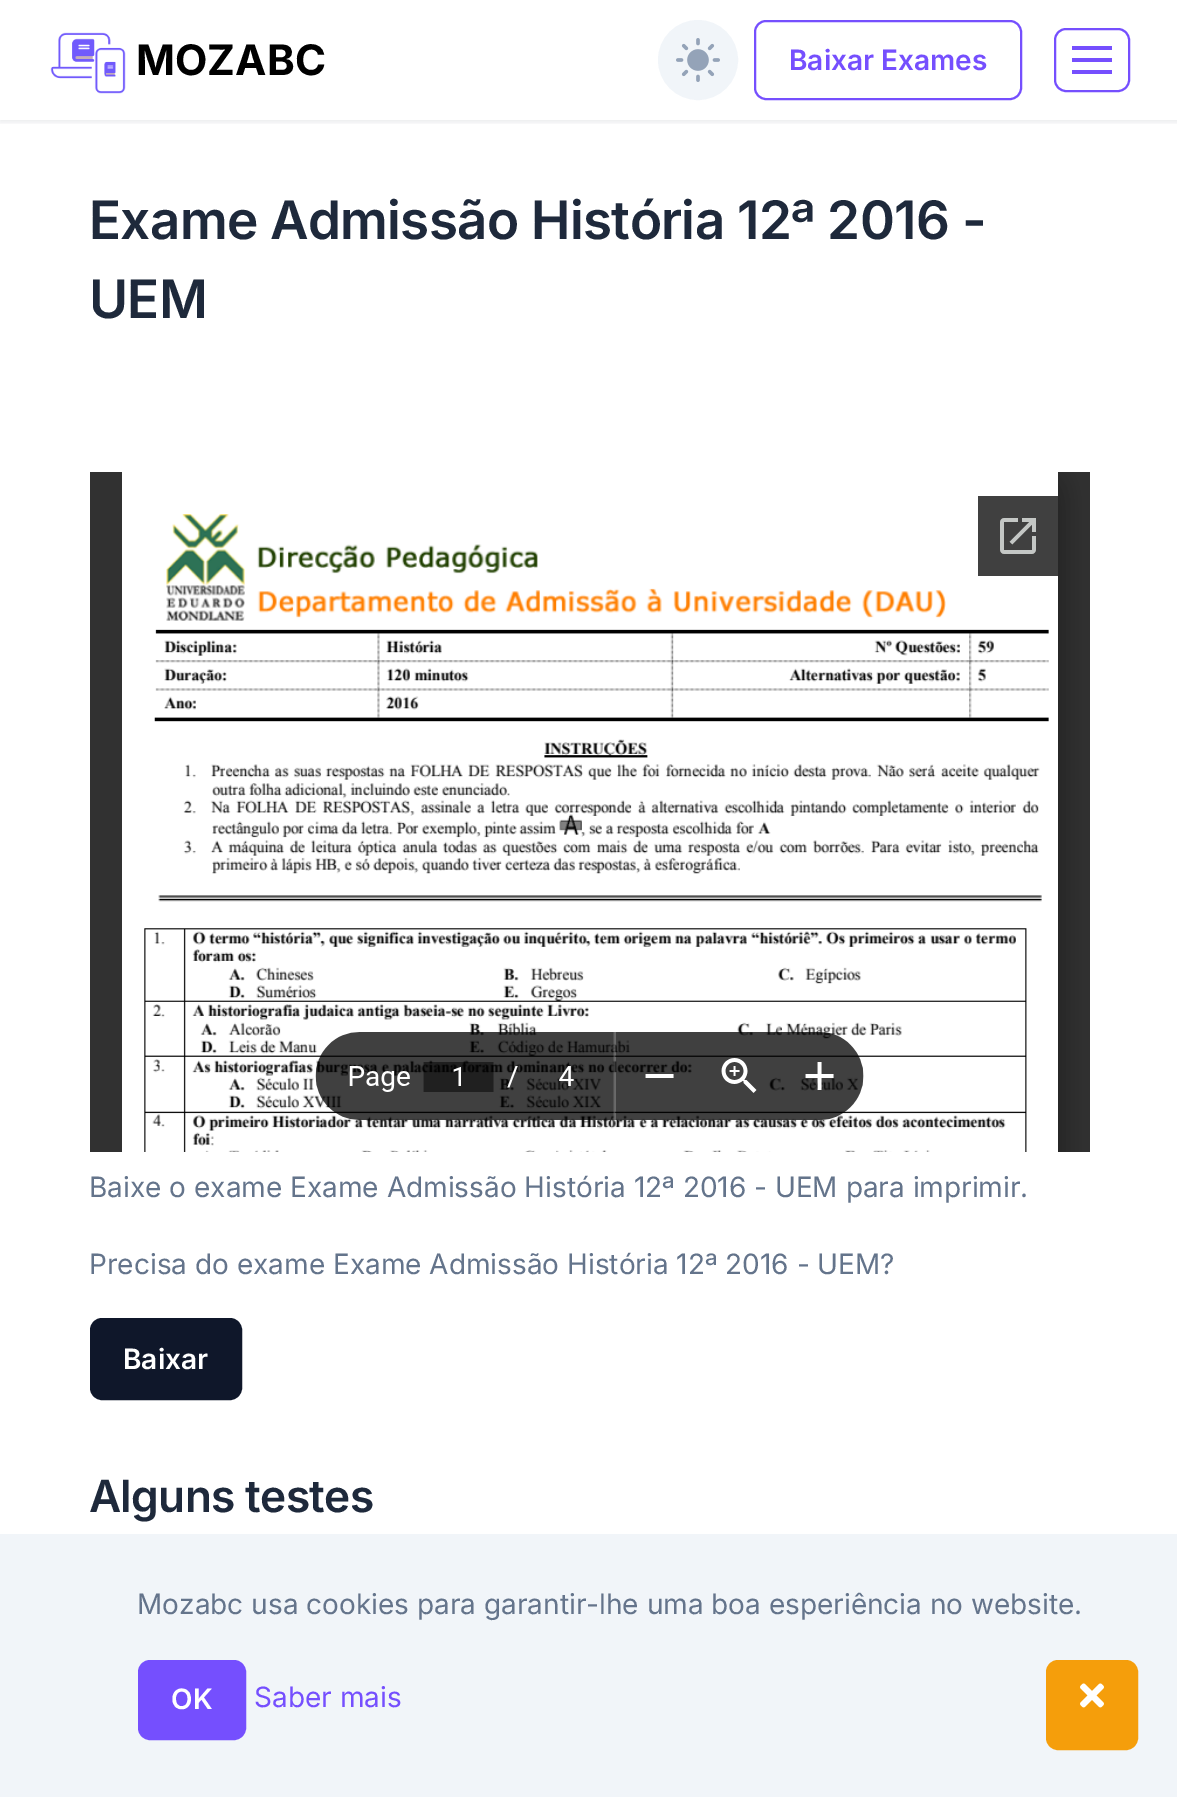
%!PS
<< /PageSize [1177 1797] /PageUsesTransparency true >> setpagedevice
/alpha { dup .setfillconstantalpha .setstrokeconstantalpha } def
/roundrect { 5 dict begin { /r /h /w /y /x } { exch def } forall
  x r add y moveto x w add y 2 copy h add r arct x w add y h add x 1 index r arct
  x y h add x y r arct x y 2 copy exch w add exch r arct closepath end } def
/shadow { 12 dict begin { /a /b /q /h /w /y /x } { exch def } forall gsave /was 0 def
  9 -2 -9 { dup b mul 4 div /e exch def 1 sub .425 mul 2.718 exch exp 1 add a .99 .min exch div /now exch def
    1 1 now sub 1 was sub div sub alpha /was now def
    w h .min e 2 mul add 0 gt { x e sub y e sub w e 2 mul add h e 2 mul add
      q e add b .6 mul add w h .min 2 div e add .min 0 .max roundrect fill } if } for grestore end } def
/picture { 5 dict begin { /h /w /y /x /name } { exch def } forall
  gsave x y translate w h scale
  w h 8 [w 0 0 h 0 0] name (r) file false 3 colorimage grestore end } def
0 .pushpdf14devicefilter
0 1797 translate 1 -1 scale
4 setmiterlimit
1 setgray
0 0 1177 1797 rectfill
gsave
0 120 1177 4 rectclip
0.067 0.094 0.153 setrgbcolor
0 2 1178 120 0 3 0.09 shadow
grestore
(img1.rgb) 50 32 76 62 picture
/Inter-Bold [42 0 0 -42 0 0] selectfont
0 setgray
136 75 moveto (MOZABC) show
0.945 0.961 0.976 setrgbcolor
newpath 698 60 39 0 360 arc closepath gsave fill grestore
2 setlinewidth
stroke
(img2.rgb) 676 38 44 44 picture
0.459 0.31 0.996 setrgbcolor
755 21 266 78 11 roundrect stroke
/Inter-SemiBold [28 0 0 -28 0 0] selectfont
789 70 moveto (Baixar Exames) show
1055 29 74 62 11 roundrect stroke
1072 46 40 4 rectfill
1072 58 40 4 rectfill
1072 70 40 4 rectfill
/Inter-SemiBold [53 0 0 -53 0 0] selectfont
0.118 0.161 0.231 setrgbcolor
89 239 moveto -0.7 0 (Exame Admissão História 12ª 2016 -) ashow
89 318 moveto -0.7 0 (UEM) ashow
(img3.rgb) 90 472 1000 680 picture
/Inter-Regular [28 0 0 -28 0 0] selectfont
0.392 0.455 0.545 setrgbcolor
89 1197 moveto (Baixe o exame Exame Admissão História 12ª 2016 - UEM para imprimir.) show
89 1274 moveto (Precisa do exame Exame Admissão História 12ª 2016 - UEM?) show
0.059 0.09 0.165 setrgbcolor
91 1319 150 80 11 roundrect gsave fill grestore
stroke
/Inter-SemiBold [28 0 0 -28 0 0] selectfont
1 setgray
123 1369 moveto (Baixar) show
/Inter-SemiBold [44.25 0 0 -44.25 0 0] selectfont
0.118 0.161 0.231 setrgbcolor
89 1512 moveto -0.7 0 (Alguns testes) ashow
0.945 0.961 0.976 setrgbcolor
0 1534 1177 263 rectfill
/Inter-Regular [28 0 0 -28 0 0] selectfont
0.392 0.455 0.545 setrgbcolor
137 1614 moveto (Mozabc usa cookies para garantir-lhe uma boa esperiência no website.) show
0.459 0.31 0.996 setrgbcolor
139 1661 106 78 11 roundrect gsave fill grestore
stroke
/Inter-SemiBold [28 0 0 -28 0 0] selectfont
1 setgray
171 1709 moveto (OK) show
/Inter-Regular [28 0 0 -28 0 0] selectfont
0.459 0.31 0.996 setrgbcolor
254 1707 moveto (Saber mais) show
0.961 0.62 0.043 setrgbcolor
1047 1661 90 88 11 roundrect gsave fill grestore
stroke
(img4.rgb) 1080 1683 24 25 picture
.poppdf14devicefilter showpage
